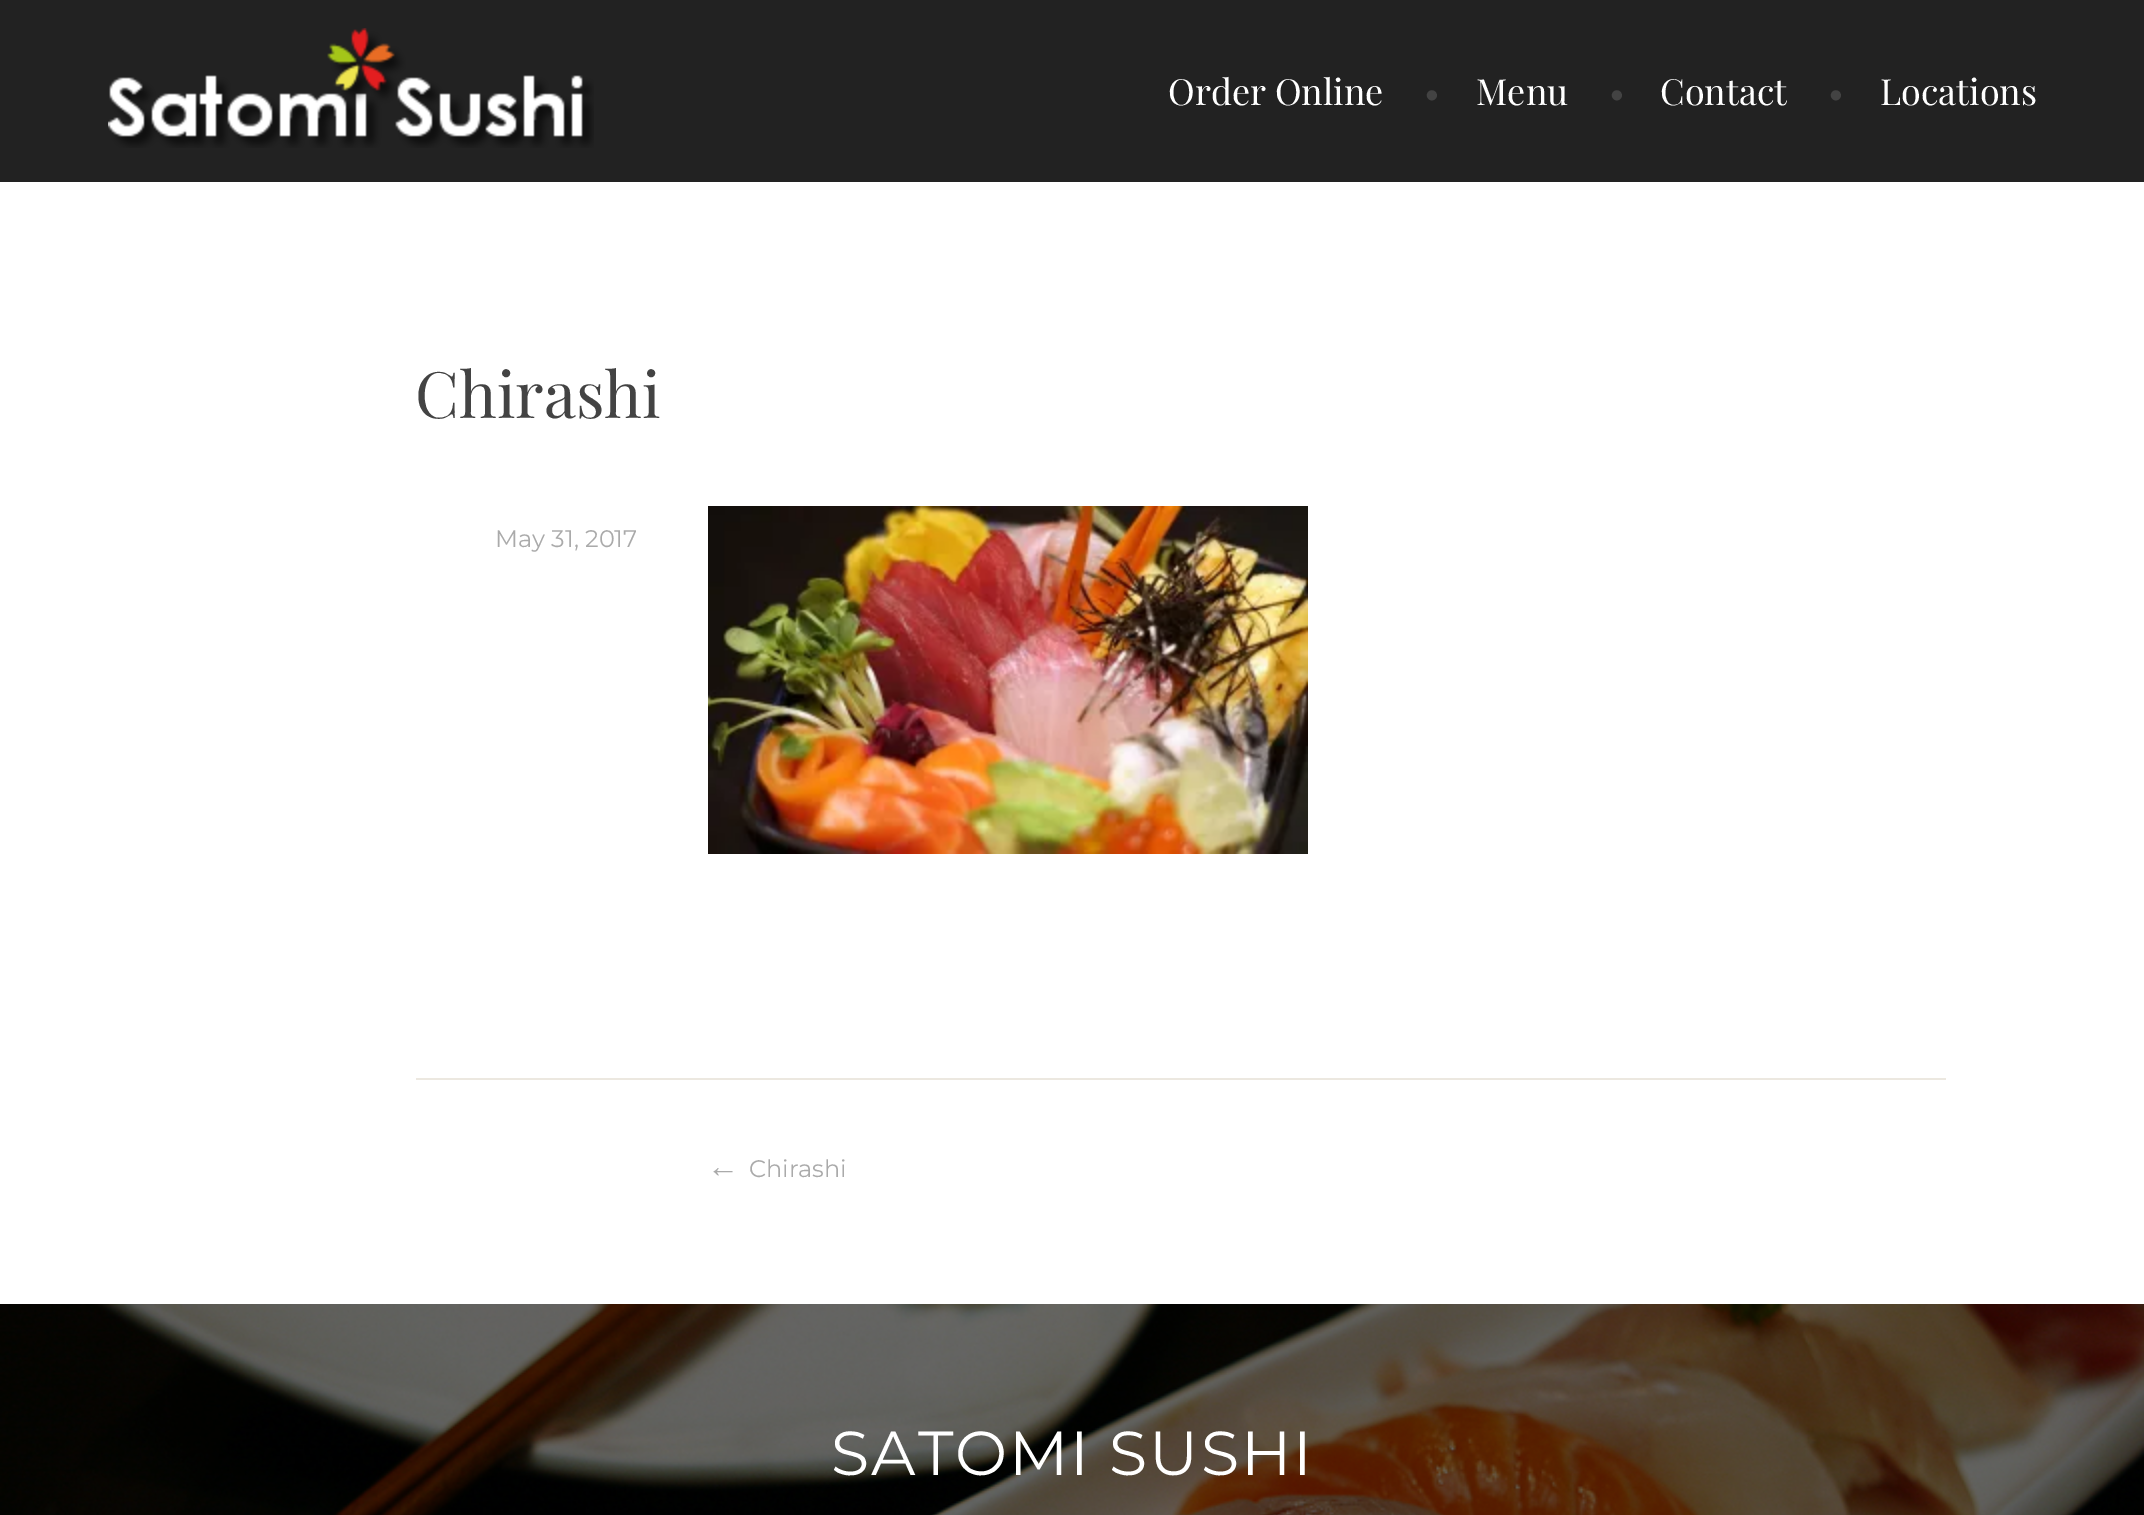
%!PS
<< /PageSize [2144 1515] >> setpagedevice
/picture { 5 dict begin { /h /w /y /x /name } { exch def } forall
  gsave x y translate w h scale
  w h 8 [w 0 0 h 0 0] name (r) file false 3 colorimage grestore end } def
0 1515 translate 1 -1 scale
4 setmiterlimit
1 setgray
0 0 2144 1515 rectfill
0.133 setgray
0 0 2144 182 rectfill
(img1.rgb) 108 28 486 120 picture
/PlayfairDisplay-Regular [36 0 0 -36 0 0] selectfont
1 setgray
1168 105 moveto (Order Online) show
0.263 setgray
1424 105 moveto (•) show
1 setgray
1476 105 moveto (Menu) show
0.263 setgray
1609 105 moveto (•) show
1 setgray
1660 105 moveto (Contact) show
0.263 setgray
1828 105 moveto (•) show
1 setgray
1880 105 moveto (Locations) show
0.925 0.91 0.878 setrgbcolor
416 1078 1530 2 rectfill
/PlayfairDisplay-Regular [64 0 0 -64 0 0] selectfont
0.263 setgray
415 418 moveto (Chirashi) show
/Montserrat-Regular [24 0 0 -24 0 0] selectfont
0.667 setgray
495 547 moveto (May 31, 2017) show
(img2.rgb) 708 506 600 348 picture
/LiberationSans-Regular [32 0 0 -32 0 0] selectfont
707 1177 moveto (←) show
/Montserrat-Regular [24 0 0 -24 0 0] selectfont
749 1177 moveto (Chirashi) show
(img3.rgb) 0 1304 2144 211 picture
/Montserrat-Regular [62 0 0 -62 0 0] selectfont
1 setgray
831 1475 moveto 2 0 (SATOMI SUSHI) ashow
showpage
